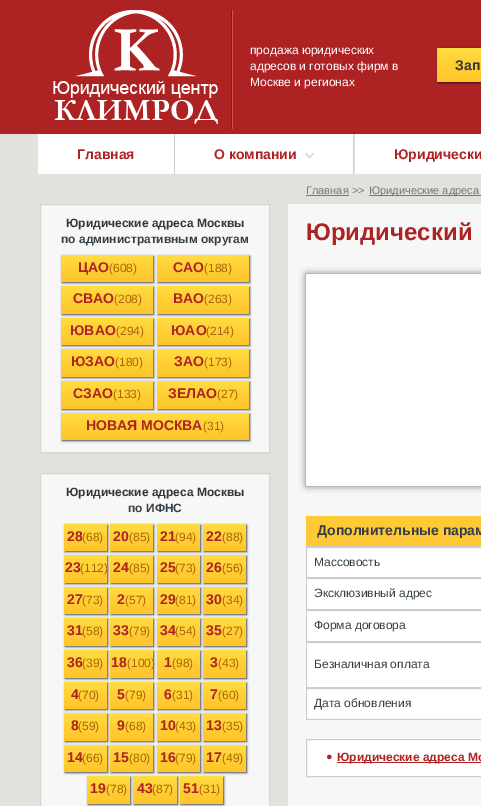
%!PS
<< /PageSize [481 806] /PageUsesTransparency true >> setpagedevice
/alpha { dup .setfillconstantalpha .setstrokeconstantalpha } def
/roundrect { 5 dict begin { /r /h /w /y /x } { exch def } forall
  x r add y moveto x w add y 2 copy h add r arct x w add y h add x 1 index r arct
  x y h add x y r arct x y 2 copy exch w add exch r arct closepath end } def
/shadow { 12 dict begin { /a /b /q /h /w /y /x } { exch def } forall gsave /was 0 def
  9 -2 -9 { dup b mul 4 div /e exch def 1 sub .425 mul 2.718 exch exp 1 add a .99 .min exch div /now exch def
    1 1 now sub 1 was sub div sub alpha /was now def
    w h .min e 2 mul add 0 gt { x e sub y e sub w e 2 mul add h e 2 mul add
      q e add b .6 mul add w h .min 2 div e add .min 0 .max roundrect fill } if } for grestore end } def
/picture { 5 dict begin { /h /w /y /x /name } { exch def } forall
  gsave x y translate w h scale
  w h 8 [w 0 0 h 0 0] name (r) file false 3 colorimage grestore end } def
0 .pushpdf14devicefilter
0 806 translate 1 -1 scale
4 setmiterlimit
0.886 0.882 0.859 setrgbcolor
0 0 481 806 rectfill
0.678 0.133 0.133 setrgbcolor
0 0 481 134 rectfill
0.851 0.306 0.306 setrgbcolor
232 10 1 119 rectfill
0.557 0.075 0.075 setrgbcolor
231 10 1 119 rectfill
(img1.rgb) 53 10 165 114 picture
/LiberationSans-Regular [12 0 0 -12 0 0] selectfont
1 setgray
250 54 moveto (продажа юридических) show
250 70 moveto (адресов и готовых фирм в) show
250 86 moveto (Москве и регионах) show
0 setgray
438 49 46 34 0 1 0.7 shadow
gsave newpath 437 48 moveto 481 48 lineto 481 82 lineto 437 82 lineto closepath clip newpath
<< /ShadingType 2 /ColorSpace /DeviceRGB /Coords [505 48 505 82] /Extend [true true] /Function << /FunctionType 3 /Domain [0 1] /Functions [<< /FunctionType 2 /Domain [0 1] /C0 [1 0.867 0.255] /C1 [1 0.816 0.208] /N 1 >> << /FunctionType 2 /Domain [0 1] /C0 [1 0.816 0.208] /C1 [1 0.773 0.165] /N 1 >>] /Bounds [0.46] /Encode [0 1 0 1] >> >> shfill grestore
/LiberationSans-Bold [14 0 0 -14 0 0] selectfont
0.208 setgray
455 70 moveto (Зап) show
1 setgray
38 134 136 40 rectfill
0.82 0.812 0.776 setrgbcolor
174 134 1 40 rectfill
0.678 0.133 0.133 setrgbcolor
77 159 moveto (Главная) show
1 setgray
175 134 178 40 rectfill
0.82 0.812 0.776 setrgbcolor
353 134 1 40 rectfill
0.678 0.133 0.133 setrgbcolor
214 159 moveto (О компании) show
(img2.rgb) 305 153 9 6 picture
1 setgray
355 134 126 40 rectfill
0.678 0.133 0.133 setrgbcolor
394 159 moveto (Юридически) show
0.969 setgray
newpath 40.5 204.5 moveto 269.5 204.5 lineto 269.5 452.5 lineto 40.5 452.5 lineto closepath gsave fill grestore
0.839 0.835 0.808 setrgbcolor
stroke
/LiberationSans-Bold [12 0 0 -12 0 0] selectfont
0.208 setgray
66 227 moveto (Юридические адреса Москвы) show
0.208 0.251 0.275 setrgbcolor
61 243 moveto (по административным округам) show
0 setgray
62 256 92 27 0 1 0.7 shadow
gsave newpath 61 255 moveto 153 255 lineto 153 282 lineto 61 282 lineto closepath clip newpath
<< /ShadingType 2 /ColorSpace /DeviceRGB /Coords [107 255 107 282] /Extend [true true] /Function << /FunctionType 3 /Domain [0 1] /Functions [<< /FunctionType 2 /Domain [0 1] /C0 [1 0.867 0.255] /C1 [1 0.816 0.208] /N 1 >> << /FunctionType 2 /Domain [0 1] /C0 [1 0.816 0.208] /C1 [1 0.773 0.165] /N 1 >>] /Bounds [0.46] /Encode [0 1 0 1] >> >> shfill grestore
/LiberationSans-Bold [14 0 0 -14 0 0] selectfont
0.678 0.133 0.133 setrgbcolor
78 272 moveto (ЦАО) show
/LiberationSans-Regular [12 0 0 -12 0 0] selectfont
0.659 0.392 0.043 setrgbcolor
109 272 moveto (\(608\)) show
0 setgray
158 256 92 27 0 1 0.7 shadow
gsave newpath 157 255 moveto 249 255 lineto 249 282 lineto 157 282 lineto closepath clip newpath
<< /ShadingType 2 /ColorSpace /DeviceRGB /Coords [203 255 203 282] /Extend [true true] /Function << /FunctionType 3 /Domain [0 1] /Functions [<< /FunctionType 2 /Domain [0 1] /C0 [1 0.867 0.255] /C1 [1 0.816 0.208] /N 1 >> << /FunctionType 2 /Domain [0 1] /C0 [1 0.816 0.208] /C1 [1 0.773 0.165] /N 1 >>] /Bounds [0.46] /Encode [0 1 0 1] >> >> shfill grestore
/LiberationSans-Bold [14 0 0 -14 0 0] selectfont
0.678 0.133 0.133 setrgbcolor
173 272 moveto (САО) show
/LiberationSans-Regular [12 0 0 -12 0 0] selectfont
0.659 0.392 0.043 setrgbcolor
204 272 moveto (\(188\)) show
0 setgray
62 287 92 28 0 1 0.7 shadow
gsave newpath 61 286 moveto 153 286 lineto 153 314 lineto 61 314 lineto closepath clip newpath
<< /ShadingType 2 /ColorSpace /DeviceRGB /Coords [107 286 107 314] /Extend [true true] /Function << /FunctionType 3 /Domain [0 1] /Functions [<< /FunctionType 2 /Domain [0 1] /C0 [1 0.867 0.255] /C1 [1 0.816 0.208] /N 1 >> << /FunctionType 2 /Domain [0 1] /C0 [1 0.816 0.208] /C1 [1 0.773 0.165] /N 1 >>] /Bounds [0.46] /Encode [0 1 0 1] >> >> shfill grestore
/LiberationSans-Bold [14 0 0 -14 0 0] selectfont
0.678 0.133 0.133 setrgbcolor
73 303 moveto (СВАО) show
/LiberationSans-Regular [12 0 0 -12 0 0] selectfont
0.659 0.392 0.043 setrgbcolor
114 303 moveto (\(208\)) show
0 setgray
158 287 92 28 0 1 0.7 shadow
gsave newpath 157 286 moveto 249 286 lineto 249 314 lineto 157 314 lineto closepath clip newpath
<< /ShadingType 2 /ColorSpace /DeviceRGB /Coords [203 286 203 314] /Extend [true true] /Function << /FunctionType 3 /Domain [0 1] /Functions [<< /FunctionType 2 /Domain [0 1] /C0 [1 0.867 0.255] /C1 [1 0.816 0.208] /N 1 >> << /FunctionType 2 /Domain [0 1] /C0 [1 0.816 0.208] /C1 [1 0.773 0.165] /N 1 >>] /Bounds [0.46] /Encode [0 1 0 1] >> >> shfill grestore
/LiberationSans-Bold [14 0 0 -14 0 0] selectfont
0.678 0.133 0.133 setrgbcolor
173 303 moveto (ВАО) show
/LiberationSans-Regular [12 0 0 -12 0 0] selectfont
0.659 0.392 0.043 setrgbcolor
204 303 moveto (\(263\)) show
0 setgray
62 319 92 27 0 1 0.7 shadow
gsave newpath 61 318 moveto 153 318 lineto 153 345 lineto 61 345 lineto closepath clip newpath
<< /ShadingType 2 /ColorSpace /DeviceRGB /Coords [107 318 107 345] /Extend [true true] /Function << /FunctionType 3 /Domain [0 1] /Functions [<< /FunctionType 2 /Domain [0 1] /C0 [1 0.867 0.255] /C1 [1 0.816 0.208] /N 1 >> << /FunctionType 2 /Domain [0 1] /C0 [1 0.816 0.208] /C1 [1 0.773 0.165] /N 1 >>] /Bounds [0.46] /Encode [0 1 0 1] >> >> shfill grestore
/LiberationSans-Bold [14 0 0 -14 0 0] selectfont
0.678 0.133 0.133 setrgbcolor
70 335 moveto (ЮВАО) show
/LiberationSans-Regular [12 0 0 -12 0 0] selectfont
0.659 0.392 0.043 setrgbcolor
116 335 moveto (\(294\)) show
0 setgray
158 319 92 27 0 1 0.7 shadow
gsave newpath 157 318 moveto 249 318 lineto 249 345 lineto 157 345 lineto closepath clip newpath
<< /ShadingType 2 /ColorSpace /DeviceRGB /Coords [203 318 203 345] /Extend [true true] /Function << /FunctionType 3 /Domain [0 1] /Functions [<< /FunctionType 2 /Domain [0 1] /C0 [1 0.867 0.255] /C1 [1 0.816 0.208] /N 1 >> << /FunctionType 2 /Domain [0 1] /C0 [1 0.816 0.208] /C1 [1 0.773 0.165] /N 1 >>] /Bounds [0.46] /Encode [0 1 0 1] >> >> shfill grestore
/LiberationSans-Bold [14 0 0 -14 0 0] selectfont
0.678 0.133 0.133 setrgbcolor
171 335 moveto (ЮАО) show
/LiberationSans-Regular [12 0 0 -12 0 0] selectfont
0.659 0.392 0.043 setrgbcolor
206 335 moveto (\(214\)) show
0 setgray
62 350 92 28 0 1 0.7 shadow
gsave newpath 61 349 moveto 153 349 lineto 153 377 lineto 61 377 lineto closepath clip newpath
<< /ShadingType 2 /ColorSpace /DeviceRGB /Coords [107 349 107 377] /Extend [true true] /Function << /FunctionType 3 /Domain [0 1] /Functions [<< /FunctionType 2 /Domain [0 1] /C0 [1 0.867 0.255] /C1 [1 0.816 0.208] /N 1 >> << /FunctionType 2 /Domain [0 1] /C0 [1 0.816 0.208] /C1 [1 0.773 0.165] /N 1 >>] /Bounds [0.46] /Encode [0 1 0 1] >> >> shfill grestore
/LiberationSans-Bold [14 0 0 -14 0 0] selectfont
0.678 0.133 0.133 setrgbcolor
71 366 moveto (ЮЗАО) show
/LiberationSans-Regular [12 0 0 -12 0 0] selectfont
0.659 0.392 0.043 setrgbcolor
115 366 moveto (\(180\)) show
0 setgray
158 350 92 28 0 1 0.7 shadow
gsave newpath 157 349 moveto 249 349 lineto 249 377 lineto 157 377 lineto closepath clip newpath
<< /ShadingType 2 /ColorSpace /DeviceRGB /Coords [203 349 203 377] /Extend [true true] /Function << /FunctionType 3 /Domain [0 1] /Functions [<< /FunctionType 2 /Domain [0 1] /C0 [1 0.867 0.255] /C1 [1 0.816 0.208] /N 1 >> << /FunctionType 2 /Domain [0 1] /C0 [1 0.816 0.208] /C1 [1 0.773 0.165] /N 1 >>] /Bounds [0.46] /Encode [0 1 0 1] >> >> shfill grestore
/LiberationSans-Bold [14 0 0 -14 0 0] selectfont
0.678 0.133 0.133 setrgbcolor
174 366 moveto (ЗАО) show
/LiberationSans-Regular [12 0 0 -12 0 0] selectfont
0.659 0.392 0.043 setrgbcolor
204 366 moveto (\(173\)) show
0 setgray
62 382 92 28 0 1 0.7 shadow
gsave newpath 61 381 moveto 153 381 lineto 153 409 lineto 61 409 lineto closepath clip newpath
<< /ShadingType 2 /ColorSpace /DeviceRGB /Coords [107 381 107 409] /Extend [true true] /Function << /FunctionType 3 /Domain [0 1] /Functions [<< /FunctionType 2 /Domain [0 1] /C0 [1 0.867 0.255] /C1 [1 0.816 0.208] /N 1 >> << /FunctionType 2 /Domain [0 1] /C0 [1 0.816 0.208] /C1 [1 0.773 0.165] /N 1 >>] /Bounds [0.46] /Encode [0 1 0 1] >> >> shfill grestore
/LiberationSans-Bold [14 0 0 -14 0 0] selectfont
0.678 0.133 0.133 setrgbcolor
73 398 moveto (СЗАО) show
/LiberationSans-Regular [12 0 0 -12 0 0] selectfont
0.659 0.392 0.043 setrgbcolor
113 398 moveto (\(133\)) show
0 setgray
158 382 92 28 0 1 0.7 shadow
gsave newpath 157 381 moveto 249 381 lineto 249 409 lineto 157 409 lineto closepath clip newpath
<< /ShadingType 2 /ColorSpace /DeviceRGB /Coords [203 381 203 409] /Extend [true true] /Function << /FunctionType 3 /Domain [0 1] /Functions [<< /FunctionType 2 /Domain [0 1] /C0 [1 0.867 0.255] /C1 [1 0.816 0.208] /N 1 >> << /FunctionType 2 /Domain [0 1] /C0 [1 0.816 0.208] /C1 [1 0.773 0.165] /N 1 >>] /Bounds [0.46] /Encode [0 1 0 1] >> >> shfill grestore
/LiberationSans-Bold [14 0 0 -14 0 0] selectfont
0.678 0.133 0.133 setrgbcolor
168 398 moveto (ЗЕЛАО) show
/LiberationSans-Regular [12 0 0 -12 0 0] selectfont
0.659 0.392 0.043 setrgbcolor
217 398 moveto (\(27\)) show
0 setgray
62 414 188 27 0 1 0.7 shadow
gsave newpath 61 413 moveto 249 413 lineto 249 440 lineto 61 440 lineto closepath clip newpath
<< /ShadingType 2 /ColorSpace /DeviceRGB /Coords [155 413 155 440] /Extend [true true] /Function << /FunctionType 3 /Domain [0 1] /Functions [<< /FunctionType 2 /Domain [0 1] /C0 [1 0.867 0.255] /C1 [1 0.816 0.208] /N 1 >> << /FunctionType 2 /Domain [0 1] /C0 [1 0.816 0.208] /C1 [1 0.773 0.165] /N 1 >>] /Bounds [0.46] /Encode [0 1 0 1] >> >> shfill grestore
/LiberationSans-Bold [14 0 0 -14 0 0] selectfont
0.678 0.133 0.133 setrgbcolor
86 430 moveto (НОВАЯ МОСКВА) show
/LiberationSans-Regular [12 0 0 -12 0 0] selectfont
0.659 0.392 0.043 setrgbcolor
203 430 moveto (\(31\)) show
0.969 setgray
newpath 40.5 473.5 moveto 269.5 473.5 lineto 269.5 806.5 lineto 40.5 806.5 lineto closepath gsave fill grestore
0.839 0.835 0.808 setrgbcolor
stroke
/LiberationSans-Bold [12 0 0 -12 0 0] selectfont
0.208 setgray
66 496 moveto (Юридические адреса Москвы) show
0.208 0.251 0.275 setrgbcolor
128 512 moveto (по ИФНС) show
0 setgray
65 525 43 27 0 1 0.7 shadow
gsave newpath 64 524 moveto 107 524 lineto 107 551 lineto 64 551 lineto closepath clip newpath
<< /ShadingType 2 /ColorSpace /DeviceRGB /Coords [86 524 86 551] /Extend [true true] /Function << /FunctionType 3 /Domain [0 1] /Functions [<< /FunctionType 2 /Domain [0 1] /C0 [1 0.867 0.255] /C1 [1 0.816 0.208] /N 1 >> << /FunctionType 2 /Domain [0 1] /C0 [1 0.816 0.208] /C1 [1 0.773 0.165] /N 1 >>] /Bounds [0.46] /Encode [0 1 0 1] >> >> shfill grestore
/LiberationSans-Bold [14 0 0 -14 0 0] selectfont
0.678 0.133 0.133 setrgbcolor
67 541 moveto (28) show
/LiberationSans-Regular [12 0 0 -12 0 0] selectfont
0.659 0.392 0.043 setrgbcolor
82 541 moveto (\(68\)) show
0 setgray
111 525 43 27 0 1 0.7 shadow
gsave newpath 110 524 moveto 153 524 lineto 153 551 lineto 110 551 lineto closepath clip newpath
<< /ShadingType 2 /ColorSpace /DeviceRGB /Coords [132 524 132 551] /Extend [true true] /Function << /FunctionType 3 /Domain [0 1] /Functions [<< /FunctionType 2 /Domain [0 1] /C0 [1 0.867 0.255] /C1 [1 0.816 0.208] /N 1 >> << /FunctionType 2 /Domain [0 1] /C0 [1 0.816 0.208] /C1 [1 0.773 0.165] /N 1 >>] /Bounds [0.46] /Encode [0 1 0 1] >> >> shfill grestore
/LiberationSans-Bold [14 0 0 -14 0 0] selectfont
0.678 0.133 0.133 setrgbcolor
113 541 moveto (20) show
/LiberationSans-Regular [12 0 0 -12 0 0] selectfont
0.659 0.392 0.043 setrgbcolor
129 541 moveto (\(85\)) show
0 setgray
158 525 43 27 0 1 0.7 shadow
gsave newpath 157 524 moveto 200 524 lineto 200 551 lineto 157 551 lineto closepath clip newpath
<< /ShadingType 2 /ColorSpace /DeviceRGB /Coords [179 524 179 551] /Extend [true true] /Function << /FunctionType 3 /Domain [0 1] /Functions [<< /FunctionType 2 /Domain [0 1] /C0 [1 0.867 0.255] /C1 [1 0.816 0.208] /N 1 >> << /FunctionType 2 /Domain [0 1] /C0 [1 0.816 0.208] /C1 [1 0.773 0.165] /N 1 >>] /Bounds [0.46] /Encode [0 1 0 1] >> >> shfill grestore
/LiberationSans-Bold [14 0 0 -14 0 0] selectfont
0.678 0.133 0.133 setrgbcolor
160 541 moveto (21) show
/LiberationSans-Regular [12 0 0 -12 0 0] selectfont
0.659 0.392 0.043 setrgbcolor
175 541 moveto (\(94\)) show
0 setgray
204 525 43 27 0 1 0.7 shadow
gsave newpath 203 524 moveto 246 524 lineto 246 551 lineto 203 551 lineto closepath clip newpath
<< /ShadingType 2 /ColorSpace /DeviceRGB /Coords [225 524 225 551] /Extend [true true] /Function << /FunctionType 3 /Domain [0 1] /Functions [<< /FunctionType 2 /Domain [0 1] /C0 [1 0.867 0.255] /C1 [1 0.816 0.208] /N 1 >> << /FunctionType 2 /Domain [0 1] /C0 [1 0.816 0.208] /C1 [1 0.773 0.165] /N 1 >>] /Bounds [0.46] /Encode [0 1 0 1] >> >> shfill grestore
/LiberationSans-Bold [14 0 0 -14 0 0] selectfont
0.678 0.133 0.133 setrgbcolor
206 541 moveto (22) show
/LiberationSans-Regular [12 0 0 -12 0 0] selectfont
0.659 0.392 0.043 setrgbcolor
222 541 moveto (\(88\)) show
0 setgray
65 556 43 28 0 1 0.7 shadow
gsave newpath 64 555 moveto 107 555 lineto 107 583 lineto 64 583 lineto closepath clip newpath
<< /ShadingType 2 /ColorSpace /DeviceRGB /Coords [86 555 86 583] /Extend [true true] /Function << /FunctionType 3 /Domain [0 1] /Functions [<< /FunctionType 2 /Domain [0 1] /C0 [1 0.867 0.255] /C1 [1 0.816 0.208] /N 1 >> << /FunctionType 2 /Domain [0 1] /C0 [1 0.816 0.208] /C1 [1 0.773 0.165] /N 1 >>] /Bounds [0.46] /Encode [0 1 0 1] >> >> shfill grestore
/LiberationSans-Bold [14 0 0 -14 0 0] selectfont
0.678 0.133 0.133 setrgbcolor
65 572 moveto (23) show
/LiberationSans-Regular [12 0 0 -12 0 0] selectfont
0.659 0.392 0.043 setrgbcolor
80 572 moveto (\(112\)) show
0 setgray
111 556 43 28 0 1 0.7 shadow
gsave newpath 110 555 moveto 153 555 lineto 153 583 lineto 110 583 lineto closepath clip newpath
<< /ShadingType 2 /ColorSpace /DeviceRGB /Coords [132 555 132 583] /Extend [true true] /Function << /FunctionType 3 /Domain [0 1] /Functions [<< /FunctionType 2 /Domain [0 1] /C0 [1 0.867 0.255] /C1 [1 0.816 0.208] /N 1 >> << /FunctionType 2 /Domain [0 1] /C0 [1 0.816 0.208] /C1 [1 0.773 0.165] /N 1 >>] /Bounds [0.46] /Encode [0 1 0 1] >> >> shfill grestore
/LiberationSans-Bold [14 0 0 -14 0 0] selectfont
0.678 0.133 0.133 setrgbcolor
113 572 moveto (24) show
/LiberationSans-Regular [12 0 0 -12 0 0] selectfont
0.659 0.392 0.043 setrgbcolor
129 572 moveto (\(85\)) show
0 setgray
158 556 43 28 0 1 0.7 shadow
gsave newpath 157 555 moveto 200 555 lineto 200 583 lineto 157 583 lineto closepath clip newpath
<< /ShadingType 2 /ColorSpace /DeviceRGB /Coords [179 555 179 583] /Extend [true true] /Function << /FunctionType 3 /Domain [0 1] /Functions [<< /FunctionType 2 /Domain [0 1] /C0 [1 0.867 0.255] /C1 [1 0.816 0.208] /N 1 >> << /FunctionType 2 /Domain [0 1] /C0 [1 0.816 0.208] /C1 [1 0.773 0.165] /N 1 >>] /Bounds [0.46] /Encode [0 1 0 1] >> >> shfill grestore
/LiberationSans-Bold [14 0 0 -14 0 0] selectfont
0.678 0.133 0.133 setrgbcolor
160 572 moveto (25) show
/LiberationSans-Regular [12 0 0 -12 0 0] selectfont
0.659 0.392 0.043 setrgbcolor
175 572 moveto (\(73\)) show
0 setgray
204 556 43 28 0 1 0.7 shadow
gsave newpath 203 555 moveto 246 555 lineto 246 583 lineto 203 583 lineto closepath clip newpath
<< /ShadingType 2 /ColorSpace /DeviceRGB /Coords [225 555 225 583] /Extend [true true] /Function << /FunctionType 3 /Domain [0 1] /Functions [<< /FunctionType 2 /Domain [0 1] /C0 [1 0.867 0.255] /C1 [1 0.816 0.208] /N 1 >> << /FunctionType 2 /Domain [0 1] /C0 [1 0.816 0.208] /C1 [1 0.773 0.165] /N 1 >>] /Bounds [0.46] /Encode [0 1 0 1] >> >> shfill grestore
/LiberationSans-Bold [14 0 0 -14 0 0] selectfont
0.678 0.133 0.133 setrgbcolor
206 572 moveto (26) show
/LiberationSans-Regular [12 0 0 -12 0 0] selectfont
0.659 0.392 0.043 setrgbcolor
222 572 moveto (\(56\)) show
0 setgray
65 588 43 27 0 1 0.7 shadow
gsave newpath 64 587 moveto 107 587 lineto 107 614 lineto 64 614 lineto closepath clip newpath
<< /ShadingType 2 /ColorSpace /DeviceRGB /Coords [86 587 86 614] /Extend [true true] /Function << /FunctionType 3 /Domain [0 1] /Functions [<< /FunctionType 2 /Domain [0 1] /C0 [1 0.867 0.255] /C1 [1 0.816 0.208] /N 1 >> << /FunctionType 2 /Domain [0 1] /C0 [1 0.816 0.208] /C1 [1 0.773 0.165] /N 1 >>] /Bounds [0.46] /Encode [0 1 0 1] >> >> shfill grestore
/LiberationSans-Bold [14 0 0 -14 0 0] selectfont
0.678 0.133 0.133 setrgbcolor
67 604 moveto (27) show
/LiberationSans-Regular [12 0 0 -12 0 0] selectfont
0.659 0.392 0.043 setrgbcolor
82 604 moveto (\(73\)) show
0 setgray
111 588 43 27 0 1 0.7 shadow
gsave newpath 110 587 moveto 153 587 lineto 153 614 lineto 110 614 lineto closepath clip newpath
<< /ShadingType 2 /ColorSpace /DeviceRGB /Coords [132 587 132 614] /Extend [true true] /Function << /FunctionType 3 /Domain [0 1] /Functions [<< /FunctionType 2 /Domain [0 1] /C0 [1 0.867 0.255] /C1 [1 0.816 0.208] /N 1 >> << /FunctionType 2 /Domain [0 1] /C0 [1 0.816 0.208] /C1 [1 0.773 0.165] /N 1 >>] /Bounds [0.46] /Encode [0 1 0 1] >> >> shfill grestore
/LiberationSans-Bold [14 0 0 -14 0 0] selectfont
0.678 0.133 0.133 setrgbcolor
117 604 moveto (2) show
/LiberationSans-Regular [12 0 0 -12 0 0] selectfont
0.659 0.392 0.043 setrgbcolor
125 604 moveto (\(57\)) show
0 setgray
158 588 43 27 0 1 0.7 shadow
gsave newpath 157 587 moveto 200 587 lineto 200 614 lineto 157 614 lineto closepath clip newpath
<< /ShadingType 2 /ColorSpace /DeviceRGB /Coords [179 587 179 614] /Extend [true true] /Function << /FunctionType 3 /Domain [0 1] /Functions [<< /FunctionType 2 /Domain [0 1] /C0 [1 0.867 0.255] /C1 [1 0.816 0.208] /N 1 >> << /FunctionType 2 /Domain [0 1] /C0 [1 0.816 0.208] /C1 [1 0.773 0.165] /N 1 >>] /Bounds [0.46] /Encode [0 1 0 1] >> >> shfill grestore
/LiberationSans-Bold [14 0 0 -14 0 0] selectfont
0.678 0.133 0.133 setrgbcolor
160 604 moveto (29) show
/LiberationSans-Regular [12 0 0 -12 0 0] selectfont
0.659 0.392 0.043 setrgbcolor
175 604 moveto (\(81\)) show
0 setgray
204 588 43 27 0 1 0.7 shadow
gsave newpath 203 587 moveto 246 587 lineto 246 614 lineto 203 614 lineto closepath clip newpath
<< /ShadingType 2 /ColorSpace /DeviceRGB /Coords [225 587 225 614] /Extend [true true] /Function << /FunctionType 3 /Domain [0 1] /Functions [<< /FunctionType 2 /Domain [0 1] /C0 [1 0.867 0.255] /C1 [1 0.816 0.208] /N 1 >> << /FunctionType 2 /Domain [0 1] /C0 [1 0.816 0.208] /C1 [1 0.773 0.165] /N 1 >>] /Bounds [0.46] /Encode [0 1 0 1] >> >> shfill grestore
/LiberationSans-Bold [14 0 0 -14 0 0] selectfont
0.678 0.133 0.133 setrgbcolor
206 604 moveto (30) show
/LiberationSans-Regular [12 0 0 -12 0 0] selectfont
0.659 0.392 0.043 setrgbcolor
222 604 moveto (\(34\)) show
0 setgray
65 619 43 28 0 1 0.7 shadow
gsave newpath 64 618 moveto 107 618 lineto 107 646 lineto 64 646 lineto closepath clip newpath
<< /ShadingType 2 /ColorSpace /DeviceRGB /Coords [86 618 86 646] /Extend [true true] /Function << /FunctionType 3 /Domain [0 1] /Functions [<< /FunctionType 2 /Domain [0 1] /C0 [1 0.867 0.255] /C1 [1 0.816 0.208] /N 1 >> << /FunctionType 2 /Domain [0 1] /C0 [1 0.816 0.208] /C1 [1 0.773 0.165] /N 1 >>] /Bounds [0.46] /Encode [0 1 0 1] >> >> shfill grestore
/LiberationSans-Bold [14 0 0 -14 0 0] selectfont
0.678 0.133 0.133 setrgbcolor
67 635 moveto (31) show
/LiberationSans-Regular [12 0 0 -12 0 0] selectfont
0.659 0.392 0.043 setrgbcolor
82 635 moveto (\(58\)) show
0 setgray
111 619 43 28 0 1 0.7 shadow
gsave newpath 110 618 moveto 153 618 lineto 153 646 lineto 110 646 lineto closepath clip newpath
<< /ShadingType 2 /ColorSpace /DeviceRGB /Coords [132 618 132 646] /Extend [true true] /Function << /FunctionType 3 /Domain [0 1] /Functions [<< /FunctionType 2 /Domain [0 1] /C0 [1 0.867 0.255] /C1 [1 0.816 0.208] /N 1 >> << /FunctionType 2 /Domain [0 1] /C0 [1 0.816 0.208] /C1 [1 0.773 0.165] /N 1 >>] /Bounds [0.46] /Encode [0 1 0 1] >> >> shfill grestore
/LiberationSans-Bold [14 0 0 -14 0 0] selectfont
0.678 0.133 0.133 setrgbcolor
113 635 moveto (33) show
/LiberationSans-Regular [12 0 0 -12 0 0] selectfont
0.659 0.392 0.043 setrgbcolor
129 635 moveto (\(79\)) show
0 setgray
158 619 43 28 0 1 0.7 shadow
gsave newpath 157 618 moveto 200 618 lineto 200 646 lineto 157 646 lineto closepath clip newpath
<< /ShadingType 2 /ColorSpace /DeviceRGB /Coords [179 618 179 646] /Extend [true true] /Function << /FunctionType 3 /Domain [0 1] /Functions [<< /FunctionType 2 /Domain [0 1] /C0 [1 0.867 0.255] /C1 [1 0.816 0.208] /N 1 >> << /FunctionType 2 /Domain [0 1] /C0 [1 0.816 0.208] /C1 [1 0.773 0.165] /N 1 >>] /Bounds [0.46] /Encode [0 1 0 1] >> >> shfill grestore
/LiberationSans-Bold [14 0 0 -14 0 0] selectfont
0.678 0.133 0.133 setrgbcolor
160 635 moveto (34) show
/LiberationSans-Regular [12 0 0 -12 0 0] selectfont
0.659 0.392 0.043 setrgbcolor
175 635 moveto (\(54\)) show
0 setgray
204 619 43 28 0 1 0.7 shadow
gsave newpath 203 618 moveto 246 618 lineto 246 646 lineto 203 646 lineto closepath clip newpath
<< /ShadingType 2 /ColorSpace /DeviceRGB /Coords [225 618 225 646] /Extend [true true] /Function << /FunctionType 3 /Domain [0 1] /Functions [<< /FunctionType 2 /Domain [0 1] /C0 [1 0.867 0.255] /C1 [1 0.816 0.208] /N 1 >> << /FunctionType 2 /Domain [0 1] /C0 [1 0.816 0.208] /C1 [1 0.773 0.165] /N 1 >>] /Bounds [0.46] /Encode [0 1 0 1] >> >> shfill grestore
/LiberationSans-Bold [14 0 0 -14 0 0] selectfont
0.678 0.133 0.133 setrgbcolor
206 635 moveto (35) show
/LiberationSans-Regular [12 0 0 -12 0 0] selectfont
0.659 0.392 0.043 setrgbcolor
222 635 moveto (\(27\)) show
0 setgray
65 651 43 28 0 1 0.7 shadow
gsave newpath 64 650 moveto 107 650 lineto 107 678 lineto 64 678 lineto closepath clip newpath
<< /ShadingType 2 /ColorSpace /DeviceRGB /Coords [86 650 86 678] /Extend [true true] /Function << /FunctionType 3 /Domain [0 1] /Functions [<< /FunctionType 2 /Domain [0 1] /C0 [1 0.867 0.255] /C1 [1 0.816 0.208] /N 1 >> << /FunctionType 2 /Domain [0 1] /C0 [1 0.816 0.208] /C1 [1 0.773 0.165] /N 1 >>] /Bounds [0.46] /Encode [0 1 0 1] >> >> shfill grestore
/LiberationSans-Bold [14 0 0 -14 0 0] selectfont
0.678 0.133 0.133 setrgbcolor
67 667 moveto (36) show
/LiberationSans-Regular [12 0 0 -12 0 0] selectfont
0.659 0.392 0.043 setrgbcolor
82 667 moveto (\(39\)) show
0 setgray
111 651 43 28 0 1 0.7 shadow
gsave newpath 110 650 moveto 153 650 lineto 153 678 lineto 110 678 lineto closepath clip newpath
<< /ShadingType 2 /ColorSpace /DeviceRGB /Coords [132 650 132 678] /Extend [true true] /Function << /FunctionType 3 /Domain [0 1] /Functions [<< /FunctionType 2 /Domain [0 1] /C0 [1 0.867 0.255] /C1 [1 0.816 0.208] /N 1 >> << /FunctionType 2 /Domain [0 1] /C0 [1 0.816 0.208] /C1 [1 0.773 0.165] /N 1 >>] /Bounds [0.46] /Encode [0 1 0 1] >> >> shfill grestore
/LiberationSans-Bold [14 0 0 -14 0 0] selectfont
0.678 0.133 0.133 setrgbcolor
111 667 moveto (18) show
/LiberationSans-Regular [12 0 0 -12 0 0] selectfont
0.659 0.392 0.043 setrgbcolor
127 667 moveto (\(100\)) show
0 setgray
158 651 43 28 0 1 0.7 shadow
gsave newpath 157 650 moveto 200 650 lineto 200 678 lineto 157 678 lineto closepath clip newpath
<< /ShadingType 2 /ColorSpace /DeviceRGB /Coords [179 650 179 678] /Extend [true true] /Function << /FunctionType 3 /Domain [0 1] /Functions [<< /FunctionType 2 /Domain [0 1] /C0 [1 0.867 0.255] /C1 [1 0.816 0.208] /N 1 >> << /FunctionType 2 /Domain [0 1] /C0 [1 0.816 0.208] /C1 [1 0.773 0.165] /N 1 >>] /Bounds [0.46] /Encode [0 1 0 1] >> >> shfill grestore
/LiberationSans-Bold [14 0 0 -14 0 0] selectfont
0.678 0.133 0.133 setrgbcolor
164 667 moveto (1) show
/LiberationSans-Regular [12 0 0 -12 0 0] selectfont
0.659 0.392 0.043 setrgbcolor
172 667 moveto (\(98\)) show
0 setgray
204 651 43 28 0 1 0.7 shadow
gsave newpath 203 650 moveto 246 650 lineto 246 678 lineto 203 678 lineto closepath clip newpath
<< /ShadingType 2 /ColorSpace /DeviceRGB /Coords [225 650 225 678] /Extend [true true] /Function << /FunctionType 3 /Domain [0 1] /Functions [<< /FunctionType 2 /Domain [0 1] /C0 [1 0.867 0.255] /C1 [1 0.816 0.208] /N 1 >> << /FunctionType 2 /Domain [0 1] /C0 [1 0.816 0.208] /C1 [1 0.773 0.165] /N 1 >>] /Bounds [0.46] /Encode [0 1 0 1] >> >> shfill grestore
/LiberationSans-Bold [14 0 0 -14 0 0] selectfont
0.678 0.133 0.133 setrgbcolor
210 667 moveto (3) show
/LiberationSans-Regular [12 0 0 -12 0 0] selectfont
0.659 0.392 0.043 setrgbcolor
218 667 moveto (\(43\)) show
0 setgray
65 683 43 27 0 1 0.7 shadow
gsave newpath 64 682 moveto 107 682 lineto 107 709 lineto 64 709 lineto closepath clip newpath
<< /ShadingType 2 /ColorSpace /DeviceRGB /Coords [86 682 86 709] /Extend [true true] /Function << /FunctionType 3 /Domain [0 1] /Functions [<< /FunctionType 2 /Domain [0 1] /C0 [1 0.867 0.255] /C1 [1 0.816 0.208] /N 1 >> << /FunctionType 2 /Domain [0 1] /C0 [1 0.816 0.208] /C1 [1 0.773 0.165] /N 1 >>] /Bounds [0.46] /Encode [0 1 0 1] >> >> shfill grestore
/LiberationSans-Bold [14 0 0 -14 0 0] selectfont
0.678 0.133 0.133 setrgbcolor
71 699 moveto (4) show
/LiberationSans-Regular [12 0 0 -12 0 0] selectfont
0.659 0.392 0.043 setrgbcolor
78 699 moveto (\(70\)) show
0 setgray
111 683 43 27 0 1 0.7 shadow
gsave newpath 110 682 moveto 153 682 lineto 153 709 lineto 110 709 lineto closepath clip newpath
<< /ShadingType 2 /ColorSpace /DeviceRGB /Coords [132 682 132 709] /Extend [true true] /Function << /FunctionType 3 /Domain [0 1] /Functions [<< /FunctionType 2 /Domain [0 1] /C0 [1 0.867 0.255] /C1 [1 0.816 0.208] /N 1 >> << /FunctionType 2 /Domain [0 1] /C0 [1 0.816 0.208] /C1 [1 0.773 0.165] /N 1 >>] /Bounds [0.46] /Encode [0 1 0 1] >> >> shfill grestore
/LiberationSans-Bold [14 0 0 -14 0 0] selectfont
0.678 0.133 0.133 setrgbcolor
117 699 moveto (5) show
/LiberationSans-Regular [12 0 0 -12 0 0] selectfont
0.659 0.392 0.043 setrgbcolor
125 699 moveto (\(79\)) show
0 setgray
158 683 43 27 0 1 0.7 shadow
gsave newpath 157 682 moveto 200 682 lineto 200 709 lineto 157 709 lineto closepath clip newpath
<< /ShadingType 2 /ColorSpace /DeviceRGB /Coords [179 682 179 709] /Extend [true true] /Function << /FunctionType 3 /Domain [0 1] /Functions [<< /FunctionType 2 /Domain [0 1] /C0 [1 0.867 0.255] /C1 [1 0.816 0.208] /N 1 >> << /FunctionType 2 /Domain [0 1] /C0 [1 0.816 0.208] /C1 [1 0.773 0.165] /N 1 >>] /Bounds [0.46] /Encode [0 1 0 1] >> >> shfill grestore
/LiberationSans-Bold [14 0 0 -14 0 0] selectfont
0.678 0.133 0.133 setrgbcolor
164 699 moveto (6) show
/LiberationSans-Regular [12 0 0 -12 0 0] selectfont
0.659 0.392 0.043 setrgbcolor
172 699 moveto (\(31\)) show
0 setgray
204 683 43 27 0 1 0.7 shadow
gsave newpath 203 682 moveto 246 682 lineto 246 709 lineto 203 709 lineto closepath clip newpath
<< /ShadingType 2 /ColorSpace /DeviceRGB /Coords [225 682 225 709] /Extend [true true] /Function << /FunctionType 3 /Domain [0 1] /Functions [<< /FunctionType 2 /Domain [0 1] /C0 [1 0.867 0.255] /C1 [1 0.816 0.208] /N 1 >> << /FunctionType 2 /Domain [0 1] /C0 [1 0.816 0.208] /C1 [1 0.773 0.165] /N 1 >>] /Bounds [0.46] /Encode [0 1 0 1] >> >> shfill grestore
/LiberationSans-Bold [14 0 0 -14 0 0] selectfont
0.678 0.133 0.133 setrgbcolor
210 699 moveto (7) show
/LiberationSans-Regular [12 0 0 -12 0 0] selectfont
0.659 0.392 0.043 setrgbcolor
218 699 moveto (\(60\)) show
0 setgray
65 714 43 28 0 1 0.7 shadow
gsave newpath 64 713 moveto 107 713 lineto 107 741 lineto 64 741 lineto closepath clip newpath
<< /ShadingType 2 /ColorSpace /DeviceRGB /Coords [86 713 86 741] /Extend [true true] /Function << /FunctionType 3 /Domain [0 1] /Functions [<< /FunctionType 2 /Domain [0 1] /C0 [1 0.867 0.255] /C1 [1 0.816 0.208] /N 1 >> << /FunctionType 2 /Domain [0 1] /C0 [1 0.816 0.208] /C1 [1 0.773 0.165] /N 1 >>] /Bounds [0.46] /Encode [0 1 0 1] >> >> shfill grestore
/LiberationSans-Bold [14 0 0 -14 0 0] selectfont
0.678 0.133 0.133 setrgbcolor
71 730 moveto (8) show
/LiberationSans-Regular [12 0 0 -12 0 0] selectfont
0.659 0.392 0.043 setrgbcolor
78 730 moveto (\(59\)) show
0 setgray
111 714 43 28 0 1 0.7 shadow
gsave newpath 110 713 moveto 153 713 lineto 153 741 lineto 110 741 lineto closepath clip newpath
<< /ShadingType 2 /ColorSpace /DeviceRGB /Coords [132 713 132 741] /Extend [true true] /Function << /FunctionType 3 /Domain [0 1] /Functions [<< /FunctionType 2 /Domain [0 1] /C0 [1 0.867 0.255] /C1 [1 0.816 0.208] /N 1 >> << /FunctionType 2 /Domain [0 1] /C0 [1 0.816 0.208] /C1 [1 0.773 0.165] /N 1 >>] /Bounds [0.46] /Encode [0 1 0 1] >> >> shfill grestore
/LiberationSans-Bold [14 0 0 -14 0 0] selectfont
0.678 0.133 0.133 setrgbcolor
117 730 moveto (9) show
/LiberationSans-Regular [12 0 0 -12 0 0] selectfont
0.659 0.392 0.043 setrgbcolor
125 730 moveto (\(68\)) show
0 setgray
158 714 43 28 0 1 0.7 shadow
gsave newpath 157 713 moveto 200 713 lineto 200 741 lineto 157 741 lineto closepath clip newpath
<< /ShadingType 2 /ColorSpace /DeviceRGB /Coords [179 713 179 741] /Extend [true true] /Function << /FunctionType 3 /Domain [0 1] /Functions [<< /FunctionType 2 /Domain [0 1] /C0 [1 0.867 0.255] /C1 [1 0.816 0.208] /N 1 >> << /FunctionType 2 /Domain [0 1] /C0 [1 0.816 0.208] /C1 [1 0.773 0.165] /N 1 >>] /Bounds [0.46] /Encode [0 1 0 1] >> >> shfill grestore
/LiberationSans-Bold [14 0 0 -14 0 0] selectfont
0.678 0.133 0.133 setrgbcolor
160 730 moveto (10) show
/LiberationSans-Regular [12 0 0 -12 0 0] selectfont
0.659 0.392 0.043 setrgbcolor
175 730 moveto (\(43\)) show
0 setgray
204 714 43 28 0 1 0.7 shadow
gsave newpath 203 713 moveto 246 713 lineto 246 741 lineto 203 741 lineto closepath clip newpath
<< /ShadingType 2 /ColorSpace /DeviceRGB /Coords [225 713 225 741] /Extend [true true] /Function << /FunctionType 3 /Domain [0 1] /Functions [<< /FunctionType 2 /Domain [0 1] /C0 [1 0.867 0.255] /C1 [1 0.816 0.208] /N 1 >> << /FunctionType 2 /Domain [0 1] /C0 [1 0.816 0.208] /C1 [1 0.773 0.165] /N 1 >>] /Bounds [0.46] /Encode [0 1 0 1] >> >> shfill grestore
/LiberationSans-Bold [14 0 0 -14 0 0] selectfont
0.678 0.133 0.133 setrgbcolor
206 730 moveto (13) show
/LiberationSans-Regular [12 0 0 -12 0 0] selectfont
0.659 0.392 0.043 setrgbcolor
222 730 moveto (\(35\)) show
0 setgray
65 746 43 27 0 1 0.7 shadow
gsave newpath 64 745 moveto 107 745 lineto 107 772 lineto 64 772 lineto closepath clip newpath
<< /ShadingType 2 /ColorSpace /DeviceRGB /Coords [86 745 86 772] /Extend [true true] /Function << /FunctionType 3 /Domain [0 1] /Functions [<< /FunctionType 2 /Domain [0 1] /C0 [1 0.867 0.255] /C1 [1 0.816 0.208] /N 1 >> << /FunctionType 2 /Domain [0 1] /C0 [1 0.816 0.208] /C1 [1 0.773 0.165] /N 1 >>] /Bounds [0.46] /Encode [0 1 0 1] >> >> shfill grestore
/LiberationSans-Bold [14 0 0 -14 0 0] selectfont
0.678 0.133 0.133 setrgbcolor
67 762 moveto (14) show
/LiberationSans-Regular [12 0 0 -12 0 0] selectfont
0.659 0.392 0.043 setrgbcolor
82 762 moveto (\(66\)) show
0 setgray
111 746 43 27 0 1 0.7 shadow
gsave newpath 110 745 moveto 153 745 lineto 153 772 lineto 110 772 lineto closepath clip newpath
<< /ShadingType 2 /ColorSpace /DeviceRGB /Coords [132 745 132 772] /Extend [true true] /Function << /FunctionType 3 /Domain [0 1] /Functions [<< /FunctionType 2 /Domain [0 1] /C0 [1 0.867 0.255] /C1 [1 0.816 0.208] /N 1 >> << /FunctionType 2 /Domain [0 1] /C0 [1 0.816 0.208] /C1 [1 0.773 0.165] /N 1 >>] /Bounds [0.46] /Encode [0 1 0 1] >> >> shfill grestore
/LiberationSans-Bold [14 0 0 -14 0 0] selectfont
0.678 0.133 0.133 setrgbcolor
113 762 moveto (15) show
/LiberationSans-Regular [12 0 0 -12 0 0] selectfont
0.659 0.392 0.043 setrgbcolor
129 762 moveto (\(80\)) show
0 setgray
158 746 43 27 0 1 0.7 shadow
gsave newpath 157 745 moveto 200 745 lineto 200 772 lineto 157 772 lineto closepath clip newpath
<< /ShadingType 2 /ColorSpace /DeviceRGB /Coords [179 745 179 772] /Extend [true true] /Function << /FunctionType 3 /Domain [0 1] /Functions [<< /FunctionType 2 /Domain [0 1] /C0 [1 0.867 0.255] /C1 [1 0.816 0.208] /N 1 >> << /FunctionType 2 /Domain [0 1] /C0 [1 0.816 0.208] /C1 [1 0.773 0.165] /N 1 >>] /Bounds [0.46] /Encode [0 1 0 1] >> >> shfill grestore
/LiberationSans-Bold [14 0 0 -14 0 0] selectfont
0.678 0.133 0.133 setrgbcolor
160 762 moveto (16) show
/LiberationSans-Regular [12 0 0 -12 0 0] selectfont
0.659 0.392 0.043 setrgbcolor
175 762 moveto (\(79\)) show
0 setgray
204 746 43 27 0 1 0.7 shadow
gsave newpath 203 745 moveto 246 745 lineto 246 772 lineto 203 772 lineto closepath clip newpath
<< /ShadingType 2 /ColorSpace /DeviceRGB /Coords [225 745 225 772] /Extend [true true] /Function << /FunctionType 3 /Domain [0 1] /Functions [<< /FunctionType 2 /Domain [0 1] /C0 [1 0.867 0.255] /C1 [1 0.816 0.208] /N 1 >> << /FunctionType 2 /Domain [0 1] /C0 [1 0.816 0.208] /C1 [1 0.773 0.165] /N 1 >>] /Bounds [0.46] /Encode [0 1 0 1] >> >> shfill grestore
/LiberationSans-Bold [14 0 0 -14 0 0] selectfont
0.678 0.133 0.133 setrgbcolor
206 762 moveto (17) show
/LiberationSans-Regular [12 0 0 -12 0 0] selectfont
0.659 0.392 0.043 setrgbcolor
222 762 moveto (\(49\)) show
0 setgray
88 777 43 28 0 1 0.7 shadow
gsave newpath 87 776 moveto 130 776 lineto 130 804 lineto 87 804 lineto closepath clip newpath
<< /ShadingType 2 /ColorSpace /DeviceRGB /Coords [109 776 109 804] /Extend [true true] /Function << /FunctionType 3 /Domain [0 1] /Functions [<< /FunctionType 2 /Domain [0 1] /C0 [1 0.867 0.255] /C1 [1 0.816 0.208] /N 1 >> << /FunctionType 2 /Domain [0 1] /C0 [1 0.816 0.208] /C1 [1 0.773 0.165] /N 1 >>] /Bounds [0.46] /Encode [0 1 0 1] >> >> shfill grestore
/LiberationSans-Bold [14 0 0 -14 0 0] selectfont
0.678 0.133 0.133 setrgbcolor
90 793 moveto (19) show
/LiberationSans-Regular [12 0 0 -12 0 0] selectfont
0.659 0.392 0.043 setrgbcolor
106 793 moveto (\(78\)) show
0 setgray
134 777 44 28 0 1 0.7 shadow
gsave newpath 133 776 moveto 177 776 lineto 177 804 lineto 133 804 lineto closepath clip newpath
<< /ShadingType 2 /ColorSpace /DeviceRGB /Coords [155 776 155 804] /Extend [true true] /Function << /FunctionType 3 /Domain [0 1] /Functions [<< /FunctionType 2 /Domain [0 1] /C0 [1 0.867 0.255] /C1 [1 0.816 0.208] /N 1 >> << /FunctionType 2 /Domain [0 1] /C0 [1 0.816 0.208] /C1 [1 0.773 0.165] /N 1 >>] /Bounds [0.46] /Encode [0 1 0 1] >> >> shfill grestore
/LiberationSans-Bold [14 0 0 -14 0 0] selectfont
0.678 0.133 0.133 setrgbcolor
137 793 moveto (43) show
/LiberationSans-Regular [12 0 0 -12 0 0] selectfont
0.659 0.392 0.043 setrgbcolor
152 793 moveto (\(87\)) show
0 setgray
181 777 43 28 0 1 0.7 shadow
gsave newpath 180 776 moveto 223 776 lineto 223 804 lineto 180 804 lineto closepath clip newpath
<< /ShadingType 2 /ColorSpace /DeviceRGB /Coords [202 776 202 804] /Extend [true true] /Function << /FunctionType 3 /Domain [0 1] /Functions [<< /FunctionType 2 /Domain [0 1] /C0 [1 0.867 0.255] /C1 [1 0.816 0.208] /N 1 >> << /FunctionType 2 /Domain [0 1] /C0 [1 0.816 0.208] /C1 [1 0.773 0.165] /N 1 >>] /Bounds [0.46] /Encode [0 1 0 1] >> >> shfill grestore
/LiberationSans-Bold [14 0 0 -14 0 0] selectfont
0.678 0.133 0.133 setrgbcolor
183 793 moveto (51) show
/LiberationSans-Regular [12 0 0 -12 0 0] selectfont
0.659 0.392 0.043 setrgbcolor
199 793 moveto (\(31\)) show
0.969 setgray
288 204 193 602 rectfill
/LiberationSans-Regular [11 0 0 -11 0 0] selectfont
0.463 setgray
306 194 moveto (Главная >>) show
306 195 43 1 rectfill
369 195 112 1 rectfill
369 194 moveto (Юридические адреса) show
/LiberationSans-Bold [24 0 0 -24 0 0] selectfont
0.678 0.133 0.133 setrgbcolor
306 240 moveto (Юридический) show
0.078 setgray
306 274 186 212 0 3.5 0.6 shadow
1 setgray
306 274 175 212 rectfill
1 0.784 0.208 setrgbcolor
307 516 174 30 rectfill
0.804 setgray
306 719 175 1 rectfill
306 546 1 174 rectfill
1 0.784 0.208 setrgbcolor
306 515 1 32 rectfill
/LiberationSans-Bold [14 0 0 -14 0 0] selectfont
0.208 0.251 0.275 setrgbcolor
317 535 moveto (Дополнительные парам) show
1 setgray
308 549 173 28 rectfill
0.804 setgray
306 546 175 2 rectfill
/LiberationSans-Regular [12 0 0 -12 0 0] selectfont
0.208 0.251 0.275 setrgbcolor
314 566 moveto (Массовость) show
1 setgray
308 580 173 29 rectfill
0.804 setgray
306 577 175 2 rectfill
0.208 0.251 0.275 setrgbcolor
314 597 moveto (Эксклюзивный адрес) show
1 setgray
308 612 173 29 rectfill
0.804 setgray
306 609 175 2 rectfill
0.208 0.251 0.275 setrgbcolor
314 629 moveto (Форма договора) show
1 setgray
308 644 173 43 rectfill
0.804 setgray
306 641 175 2 rectfill
0.208 0.251 0.275 setrgbcolor
314 668 moveto (Безналичная оплата) show
1 setgray
308 690 173 28 rectfill
0.804 setgray
306 687 175 2 rectfill
0.208 0.251 0.275 setrgbcolor
314 707 moveto (Дата обновления) show
1 setgray
newpath 306.5 739.5 moveto 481.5 739.5 lineto 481.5 776.5 lineto 306.5 776.5 lineto closepath gsave fill grestore
0.804 setgray
stroke
(img3.rgb) 327 754 5 6 picture
0.678 0.133 0.133 setrgbcolor
337 762 144 1 rectfill
/LiberationSans-Bold [12 0 0 -12 0 0] selectfont
337 761 moveto (Юридические адреса Мо) show
.poppdf14devicefilter showpage
